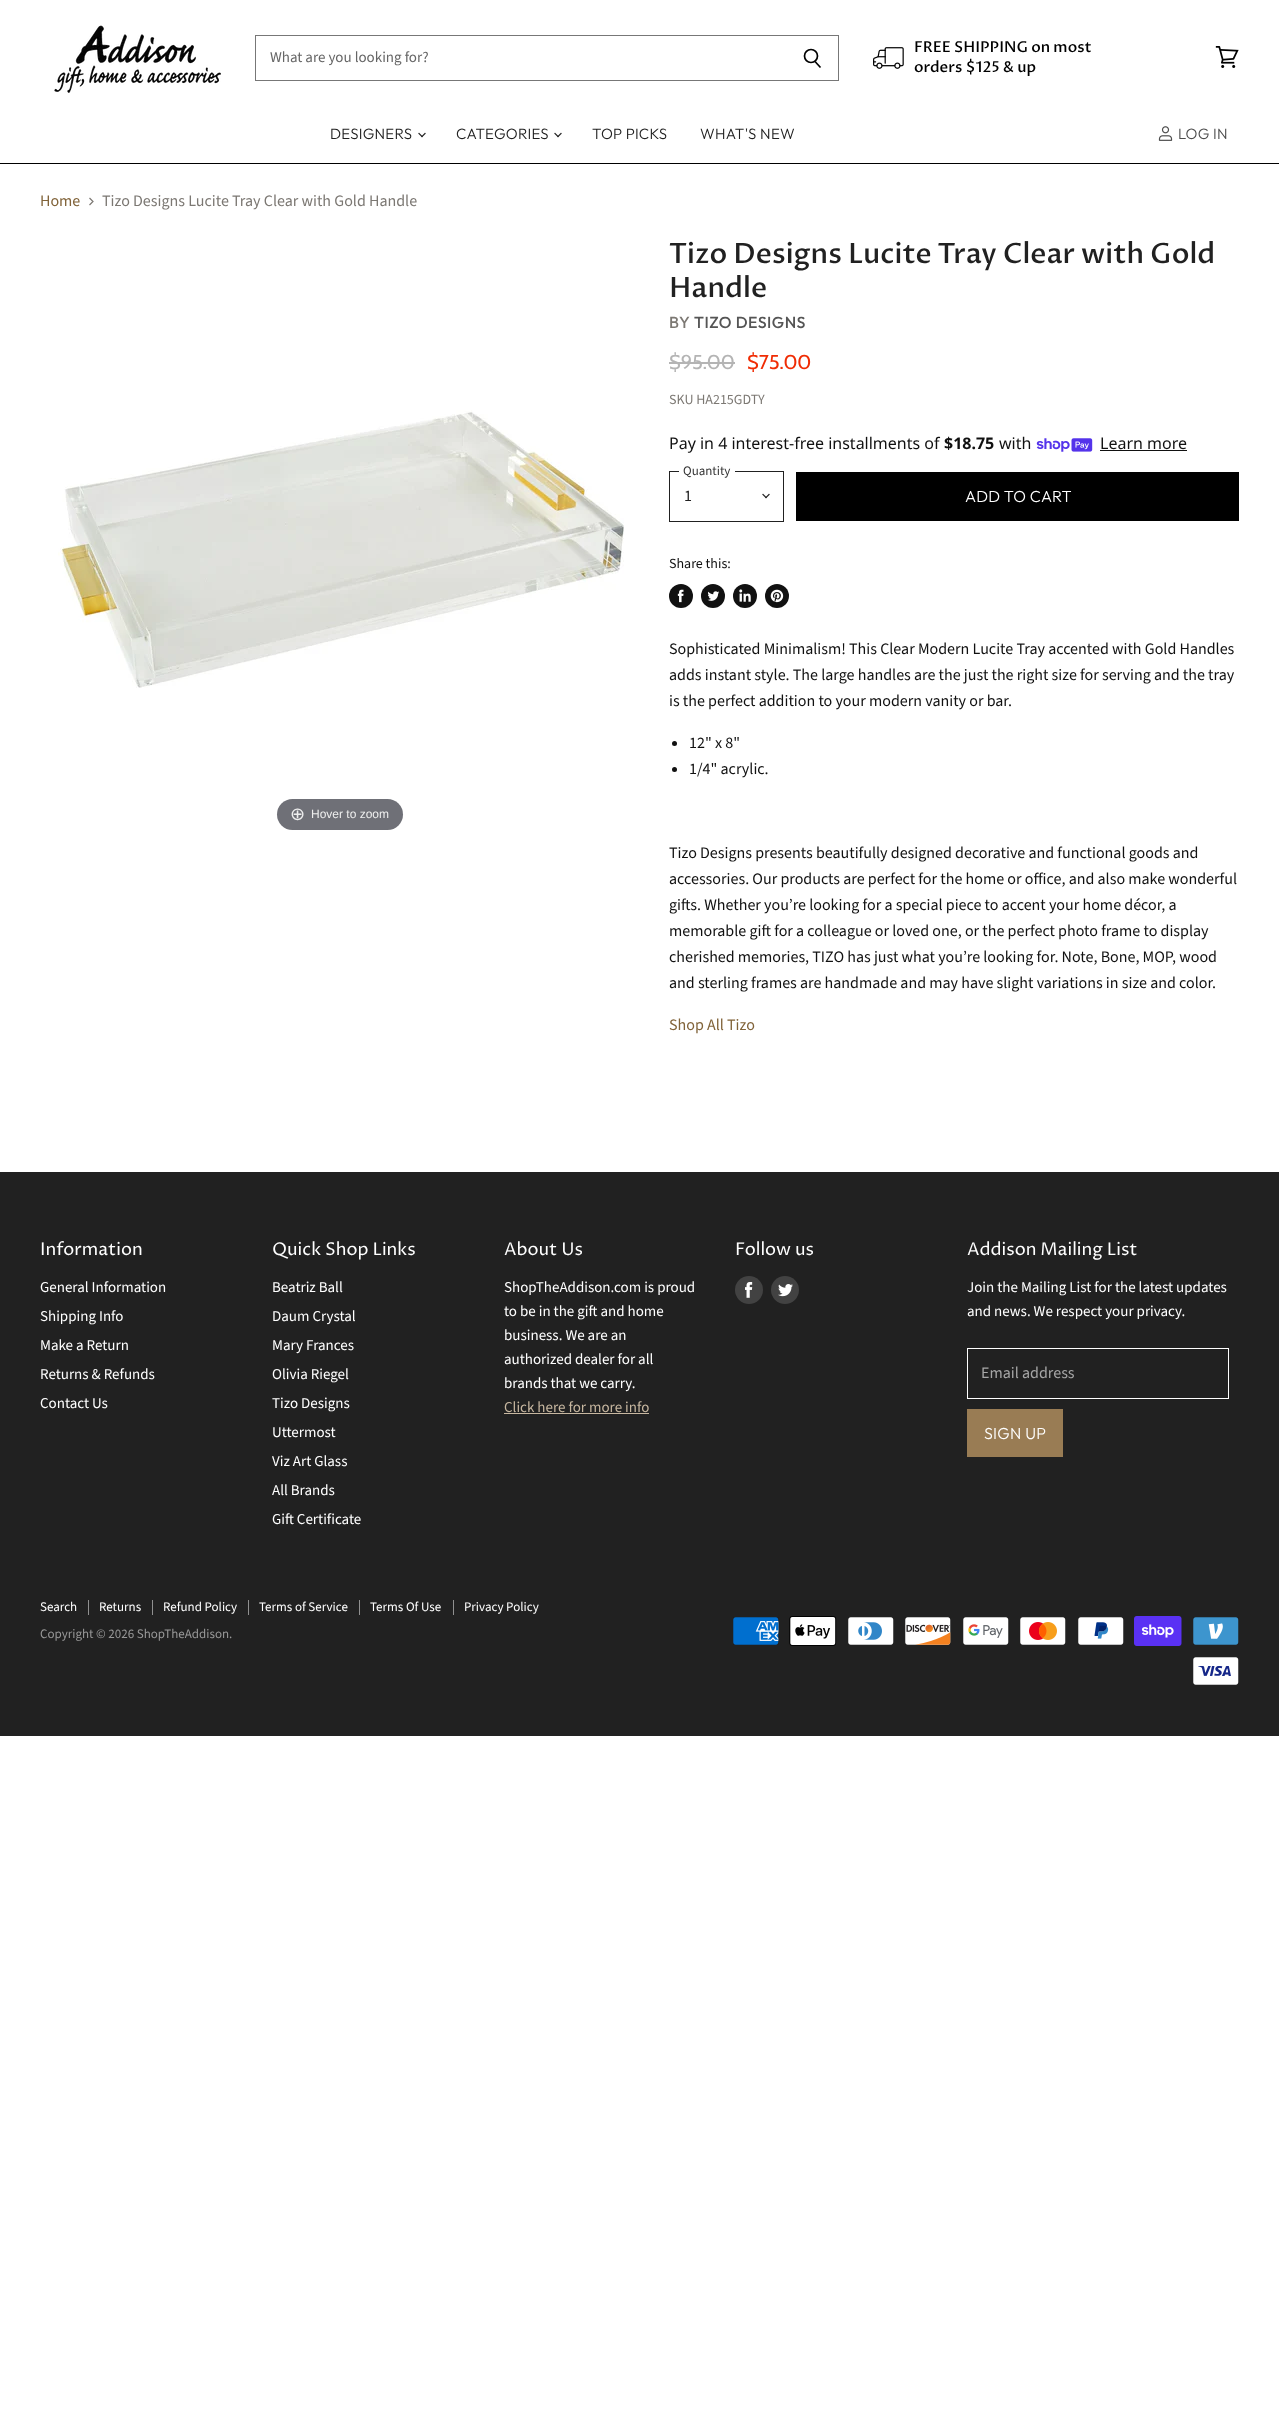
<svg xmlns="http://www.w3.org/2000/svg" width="1279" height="2424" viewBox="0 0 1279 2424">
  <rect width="100%" height="100%" fill="rgb(255,255,255)"/>
  <rect x="0" y="163" width="1279" height="1" fill="rgb(0,0,0)"/>
  <image x="54" y="25" width="167" height="68" href="pic1.png"/>
  <rect x="255" y="35" width="584" height="1" fill="rgb(119,119,119)"/>
  <rect x="838" y="35" width="1" height="46" fill="rgb(119,119,119)"/>
  <rect x="255" y="80" width="584" height="1" fill="rgb(119,119,119)"/>
  <path d="M820.5 67.5L815 61.5" fill="none" stroke="rgb(0,0,0)" stroke-width="1.7"/>
  <circle cx="811" cy="56" r="6.5" fill="none" stroke="rgb(0,0,0)" stroke-width="1.7"/>
  <rect x="255" y="35" width="1" height="46" fill="rgb(119,119,119)"/>
  <text x="270" y="62" font-family="Source Sans Pro" font-size="15" fill="rgb(102,102,102)">What are you looking for?</text>
  <image x="873" y="47" width="31" height="22" href="pic2.png"/>
  <g font-family="Proza Libre" font-size="15" font-weight="500" fill="rgb(0,0,0)">
    <text>
      <tspan x="914" y="52">FREE SHIPPING on most</tspan>
      <tspan x="914" y="72">orders $125 &amp; up</tspan>
    </text>
  </g>
  <image x="1215" y="46" width="24" height="22" href="pic3.png"/>
  <text x="330" y="139" font-family="Outfit" font-size="15" font-weight="300" letter-spacing="0.25" fill="rgb(33,33,33)">DESIGNERS</text>
  <image x="418" y="132" width="8" height="6" href="pic4.png"/>
  <text x="456" y="139" font-family="Outfit" font-size="15" font-weight="300" letter-spacing="0.25" fill="rgb(33,33,33)">CATEGORIES</text>
  <image x="554" y="132" width="8" height="6" href="pic4.png"/>
  <g font-family="Outfit" font-size="15" font-weight="300" letter-spacing="0.25" fill="rgb(33,33,33)">
    <text x="592" y="139">TOP PICKS</text>
    <text x="700" y="139">WHAT'S NEW</text>
  </g>
  <image x="1158" y="126" width="15" height="15" href="pic5.png"/>
  <text x="1178" y="139" font-family="Outfit" font-size="15" font-weight="300" letter-spacing="0.25" fill="rgb(77,77,77)">LOG IN</text>
  <text x="40" y="206" font-family="Source Sans Pro" font-size="16" fill="rgb(129,99,57)">Home</text>
  <path d="M89.5 205L93 201.5L89.5 198" fill="none" stroke="rgb(124,120,115)" stroke-width="1.2"/>
  <text x="102" y="206" font-family="Source Sans Pro" font-size="16" fill="rgb(124,120,115)">Tizo Designs Lucite Tray Clear with Gold Handle</text>
  <image x="58" y="410" width="566" height="278" href="pic6.png"/>
  <rect x="277" y="799" width="126" height="31" rx="15.5" fill="rgb(111,112,119)"/>
  <text x="290" y="820" font-family="DejaVu Sans" font-size="18" fill="rgb(238,238,238)">⊕</text>
  <text x="311" y="818" font-family="Liberation Sans" font-size="12" fill="rgb(238,238,238)">Hover to zoom</text>
  <g font-family="Proza Libre" font-size="28" font-weight="500" fill="rgb(33,33,33)">
    <text>
      <tspan x="669" y="263">Tizo Designs Lucite Tray Clear with Gold</tspan>
      <tspan x="669" y="297">Handle</tspan>
    </text>
  </g>
  <text x="669" y="328" font-family="Outfit" font-size="16" font-weight="500" letter-spacing="0.5" fill="rgb(124,120,115)">BY</text>
  <text x="694" y="328" font-family="Outfit" font-size="16" font-weight="500" letter-spacing="0.5" fill="rgb(85,85,85)">TIZO DESIGNS</text>
  <text x="669" y="369" font-family="Cabin" font-size="20" fill="rgb(180,180,180)">$95.00</text>
  <rect x="669" y="362" width="66" height="2" fill="rgb(180,180,180)"/>
  <text x="747" y="369" font-family="Cabin" font-size="20" fill="rgb(240,44,4)">$75.00</text>
  <text x="669" y="404" font-family="Source Sans Pro" font-size="14" fill="rgb(124,120,115)">SKU HA215GDTY</text>
  <text x="669" y="449" font-family="Noto Sans" font-size="16" fill="rgb(17,17,17)">Pay in 4 interest-free installments of</text>
  <text x="944" y="449" font-family="Noto Sans" font-size="16" font-weight="bold" fill="rgb(17,17,17)">$18.75</text>
  <text x="999" y="449" font-family="Noto Sans" font-size="16" fill="rgb(17,17,17)">with</text>
  <image x="1036" y="438" width="57" height="14" href="pic7.png"/>
  <text x="1100" y="449" font-family="Noto Sans" font-size="16" fill="rgb(17,17,17)">Learn more</text>
  <rect x="1100" y="450" width="87" height="1" fill="rgb(17,17,17)"/>
  <rect x="669.5" y="471.5" width="114" height="50" fill="none" stroke="rgb(33,33,33)"/>
  <rect x="679" y="471" width="56" height="1" fill="rgb(255,255,255)"/>
  <text x="683" y="475" font-family="Source Sans Pro" font-size="13" fill="rgb(51,51,51)">Quantity</text>
  <text x="684" y="501" font-family="Source Sans Pro" font-size="16" fill="rgb(33,33,33)">1</text>
  <image x="762" y="493" width="8" height="6" href="pic4.png"/>
  <rect x="796" y="472" width="443" height="49" fill="rgb(0,0,0)"/>
  <text x="965" y="502" font-family="Outfit" font-size="16" font-weight="300" letter-spacing="0.25" fill="rgb(255,255,255)">ADD TO CART</text>
  <text x="669" y="568" font-family="Source Sans Pro" font-size="14" fill="rgb(17,17,17)">Share this:</text>
  <circle cx="681" cy="596" r="12" fill="rgb(17,17,17)"/>
  <image x="677" y="589" width="7" height="14" href="pic8.png"/>
  <circle cx="713" cy="596" r="12" fill="rgb(17,17,17)"/>
  <image x="707" y="591" width="13" height="10" href="pic9.png"/>
  <circle cx="745" cy="596" r="12" fill="rgb(17,17,17)"/>
  <image x="739" y="589" width="12" height="13" href="pic10.png"/>
  <circle cx="777" cy="596" r="12" fill="rgb(17,17,17)"/>
  <image x="770" y="589" width="14" height="14" href="pic11.png"/>
  <g font-family="Source Sans Pro" font-size="16" fill="rgb(17,17,17)">
    <text>
      <tspan x="669" y="654">Sophisticated Minimalism! This Clear Modern Lucite Tray accented with Gold Handles</tspan>
      <tspan x="669" y="680">adds instant style. The large handles are the just the right size for serving and the tray</tspan>
      <tspan x="669" y="706">is the perfect addition to your modern vanity or bar.</tspan>
    </text>
  </g>
  <circle cx="674.5" cy="743.5" r="2.5" fill="rgb(17,17,17)"/>
  <text x="689" y="748" font-family="Source Sans Pro" font-size="16" fill="rgb(17,17,17)">12" x 8"</text>
  <circle cx="674.5" cy="769.5" r="2.5" fill="rgb(17,17,17)"/>
  <g font-family="Source Sans Pro" font-size="16" fill="rgb(17,17,17)">
    <text x="689" y="774">1/4" acrylic.</text>
    <text>
      <tspan x="669" y="858">Tizo Designs presents beautifully designed decorative and functional goods and</tspan>
      <tspan x="669" y="884">accessories. Our products are perfect for the home or office, and also make wonderful</tspan>
      <tspan x="669" y="910">gifts. Whether you’re looking for a special piece to accent your home décor, a</tspan>
      <tspan x="669" y="936">memorable gift for a colleague or loved one, or the perfect photo frame to display</tspan>
      <tspan x="669" y="962">cherished memories, TIZO has just what you’re looking for. Note, Bone, MOP, wood</tspan>
      <tspan x="669" y="988">and sterling frames are handmade and may have slight variations in size and color.</tspan>
    </text>
  </g>
  <text x="669" y="1030" font-family="Source Sans Pro" font-size="16" fill="rgb(129,99,57)">Shop All Tizo</text>
  <rect x="0" y="1172" width="1279" height="564" fill="rgb(33,33,33)"/>
  <text x="40" y="1255" font-family="Proza Libre" font-size="17.6" fill="rgb(255,255,255)">Information</text>
  <g font-family="Source Sans Pro" font-size="15" fill="rgb(255,255,255)">
    <text>
      <tspan x="40" y="1292">General Information</tspan>
      <tspan x="40" y="1321">Shipping Info</tspan>
      <tspan x="40" y="1350">Make a Return</tspan>
      <tspan x="40" y="1379">Returns &amp; Refunds</tspan>
      <tspan x="40" y="1408">Contact Us</tspan>
    </text>
  </g>
  <text x="272" y="1255" font-family="Proza Libre" font-size="17.6" fill="rgb(255,255,255)">Quick Shop Links</text>
  <g font-family="Source Sans Pro" font-size="15" fill="rgb(255,255,255)">
    <text>
      <tspan x="272" y="1292">Beatriz Ball</tspan>
      <tspan x="272" y="1321">Daum Crystal</tspan>
      <tspan x="272" y="1350">Mary Frances</tspan>
      <tspan x="272" y="1379">Olivia Riegel</tspan>
      <tspan x="272" y="1408">Tizo Designs</tspan>
      <tspan x="272" y="1437">Uttermost</tspan>
      <tspan x="272" y="1466">Viz Art Glass</tspan>
      <tspan x="272" y="1495">All Brands</tspan>
      <tspan x="272" y="1524">Gift Certificate</tspan>
    </text>
  </g>
  <text x="504" y="1255" font-family="Proza Libre" font-size="17.6" fill="rgb(255,255,255)">About Us</text>
  <g font-family="Source Sans Pro" font-size="15" fill="rgb(255,255,255)">
    <text>
      <tspan x="504" y="1292">ShopTheAddison.com is proud</tspan>
      <tspan x="504" y="1316">to be in the gift and home</tspan>
      <tspan x="504" y="1340">business. We are an</tspan>
      <tspan x="504" y="1364">authorized dealer for all</tspan>
      <tspan x="504" y="1388">brands that we carry.</tspan>
    </text>
  </g>
  <text x="504" y="1412" font-family="Source Sans Pro" font-size="15" fill="rgb(199,183,160)">Click here for more info</text>
  <rect x="504" y="1413" width="145" height="1" fill="rgb(199,183,160)"/>
  <text x="735" y="1255" font-family="Proza Libre" font-size="17.6" fill="rgb(255,255,255)">Follow us</text>
  <circle cx="749" cy="1290" r="14" fill="rgb(66,66,66)"/>
  <image x="745" y="1282" width="8" height="16" href="pic12.png"/>
  <circle cx="785" cy="1290" r="14" fill="rgb(66,66,66)"/>
  <image x="778" y="1284" width="15" height="13" href="pic13.png"/>
  <text x="967" y="1255" font-family="Proza Libre" font-size="17.6" fill="rgb(255,255,255)">Addison Mailing List</text>
  <g font-family="Source Sans Pro" font-size="15" fill="rgb(255,255,255)">
    <text>
      <tspan x="967" y="1292">Join the Mailing List for the latest updates</tspan>
      <tspan x="967" y="1316">and news. We respect your privacy.</tspan>
    </text>
  </g>
  <rect x="967.5" y="1348.5" width="261" height="50" fill="none" stroke="rgb(255,255,255)"/>
  <text x="981" y="1378" font-family="Source Sans Pro" font-size="16" fill="rgb(166,166,166)">Email address</text>
  <rect x="967" y="1409" width="96" height="48" fill="rgb(153,124,84)"/>
  <text x="984" y="1439" font-family="Outfit" font-size="16" font-weight="300" letter-spacing="0.25" fill="rgb(255,255,255)">SIGN UP</text>
  <rect x="88" y="1600" width="1" height="15" fill="rgb(144,144,144)"/>
  <text x="40" y="1611" font-family="Source Sans Pro" font-size="13" fill="rgb(255,255,255)">Search</text>
  <rect x="152" y="1600" width="1" height="15" fill="rgb(144,144,144)"/>
  <text x="99" y="1611" font-family="Source Sans Pro" font-size="13" fill="rgb(255,255,255)">Returns</text>
  <rect x="248" y="1600" width="1" height="15" fill="rgb(144,144,144)"/>
  <text x="163" y="1611" font-family="Source Sans Pro" font-size="13" fill="rgb(255,255,255)">Refund Policy</text>
  <rect x="359" y="1600" width="1" height="15" fill="rgb(144,144,144)"/>
  <text x="259" y="1611" font-family="Source Sans Pro" font-size="13" fill="rgb(255,255,255)">Terms of Service</text>
  <rect x="453" y="1600" width="1" height="15" fill="rgb(144,144,144)"/>
  <g font-family="Source Sans Pro" font-size="13" fill="rgb(255,255,255)">
    <text x="370" y="1611">Terms Of Use</text>
    <text x="464" y="1611">Privacy Policy</text>
  </g>
  <text x="40" y="1638" font-family="Source Sans Pro" font-size="13" fill="rgb(153,153,153)">Copyright © 2026 ShopTheAddison.</text>
  <image x="733" y="1617" width="46" height="28" href="pic14.png"/>
  <image x="789" y="1616" width="48" height="30" href="pic15.png"/>
  <image x="848" y="1617" width="46" height="28" href="pic16.png"/>
  <image x="905" y="1617" width="46" height="28" href="pic17.png"/>
  <image x="963" y="1617" width="46" height="28" href="pic18.png"/>
  <image x="1020" y="1617" width="46" height="28" href="pic19.png"/>
  <image x="1078" y="1617" width="46" height="28" href="pic20.png"/>
  <image x="1134" y="1616" width="48" height="30" href="pic21.png"/>
  <image x="1193" y="1617" width="46" height="28" href="pic22.png"/>
  <image x="1193" y="1657" width="46" height="28" href="pic23.png"/>
</svg>
